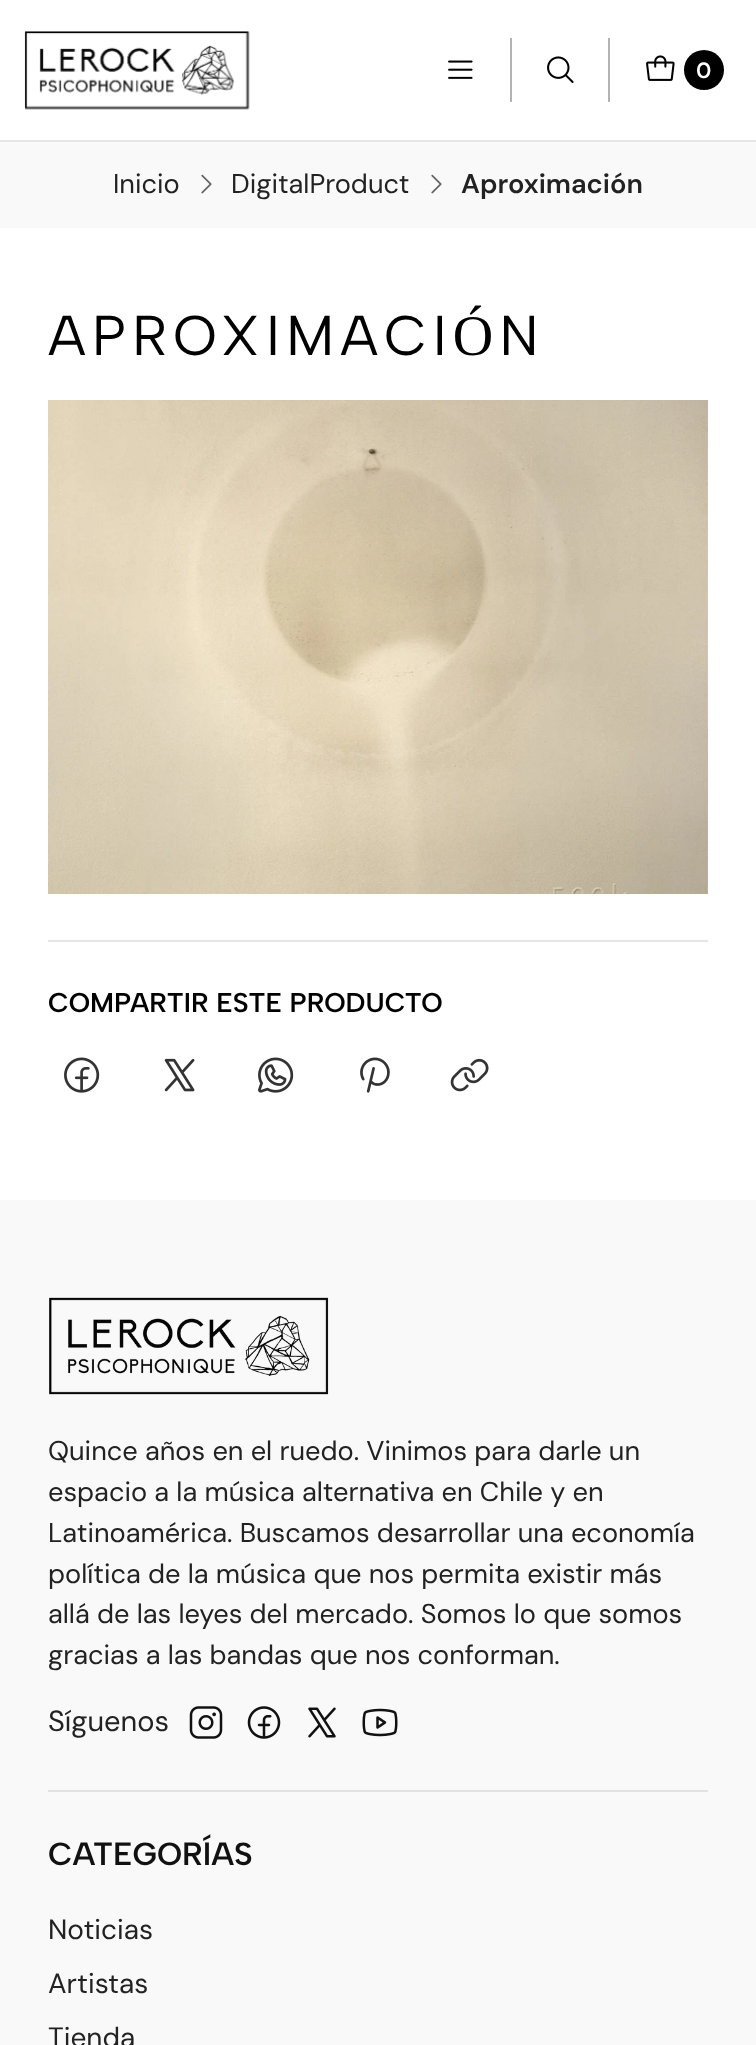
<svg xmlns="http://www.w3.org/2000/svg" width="756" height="2045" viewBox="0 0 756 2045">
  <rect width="100%" height="100%" fill="rgb(255,255,255)"/>
  <rect x="0" y="140" width="756" height="2" fill="rgb(230,230,230)"/>
  <image x="24" y="31" width="226" height="79" href="pic1.png"/>
  <image x="448" y="60" width="25" height="19" href="pic2.png"/>
  <rect x="510" y="38" width="2" height="64" fill="rgb(179,179,179)"/>
  <image x="547" y="56" width="27" height="27" href="pic3.png"/>
  <rect x="608" y="38" width="2" height="64" fill="rgb(179,179,179)"/>
  <image x="646" y="55" width="29" height="26" href="pic4.png"/>
  <circle cx="704" cy="70" r="20" fill="rgb(0,0,0)"/>
  <text x="696" y="78" font-family="DM Sans" font-size="22" font-weight="600" fill="rgb(255,255,255)">0</text>
  <rect x="0" y="142" width="756" height="86" fill="rgb(249,249,249)"/>
  <text x="113" y="193" font-family="DM Sans" font-size="27.2" fill="rgb(34,34,34)">Inicio</text>
  <image x="201" y="174" width="11" height="20" href="pic5.png"/>
  <text x="231" y="193" font-family="DM Sans" font-size="27.2" fill="rgb(34,34,34)">DigitalProduct</text>
  <image x="431" y="174" width="11" height="20" href="pic5.png"/>
  <text x="461" y="193" font-family="DM Sans" font-size="27.2" font-weight="600" fill="rgb(34,34,34)">Aproximación</text>
  <text x="48" y="355" font-family="Albert Sans" font-size="56" letter-spacing="6" fill="rgb(0,0,0)">APROXIMACIÓN</text>
  <image x="48" y="400" width="660" height="494" href="pic6.png"/>
  <rect x="48" y="940" width="660" height="2" fill="rgb(230,230,230)"/>
  <text x="48" y="1012" font-family="Albert Sans" font-size="27.2" font-weight="600" fill="rgb(0,0,0)">COMPARTIR ESTE PRODUCTO</text>
  <image x="64" y="1057" width="36" height="36" href="pic7.png"/>
  <image x="164" y="1058" width="31" height="34" href="pic8.png"/>
  <image x="258" y="1057" width="36" height="36" href="pic9.png"/>
  <image x="360" y="1057" width="30" height="36" href="pic10.png"/>
  <image x="450" y="1058" width="39" height="34" href="pic11.png"/>
  <rect x="0" y="1200" width="756" height="845" fill="rgb(249,249,249)"/>
  <image x="49" y="1297" width="280" height="98" href="pic12.png"/>
  <g font-family="DM Sans" font-size="27.2" fill="rgb(34,34,34)">
    <text>
      <tspan x="48" y="1460">Quince años en el ruedo. Vinimos para darle un</tspan>
      <tspan x="48" y="1501">espacio a la música alternativa en Chile y en</tspan>
      <tspan x="48" y="1542">Latinoamérica. Buscamos desarrollar una economía</tspan>
      <tspan x="48" y="1583">política de la música que nos permita existir más</tspan>
      <tspan x="48" y="1623">allá de las leyes del mercado. Somos lo que somos</tspan>
      <tspan x="48" y="1664">gracias a las bandas que nos conforman.</tspan>
    </text>
  </g>
  <text x="48" y="1731" font-family="DM Sans" font-size="29" fill="rgb(34,34,34)">Síguenos</text>
  <image x="189" y="1706" width="34" height="33" href="pic13.png"/>
  <image x="247" y="1706" width="34" height="33" href="pic14.png"/>
  <image x="308" y="1707" width="28" height="31" href="pic15.png"/>
  <image x="362" y="1708" width="36" height="29" href="pic16.png"/>
  <rect x="48" y="1790" width="660" height="2" fill="rgb(226,226,226)"/>
  <text x="48" y="1865" font-family="Albert Sans" font-size="32" font-weight="600" fill="rgb(17,17,17)">CATEGORÍAS</text>
  <g font-family="DM Sans" font-size="28" fill="rgb(34,34,34)">
    <text>
      <tspan x="48" y="1939">Noticias</tspan>
      <tspan x="48" y="1993">Artistas</tspan>
      <tspan x="48" y="2047">Tienda</tspan>
    </text>
  </g>
</svg>
